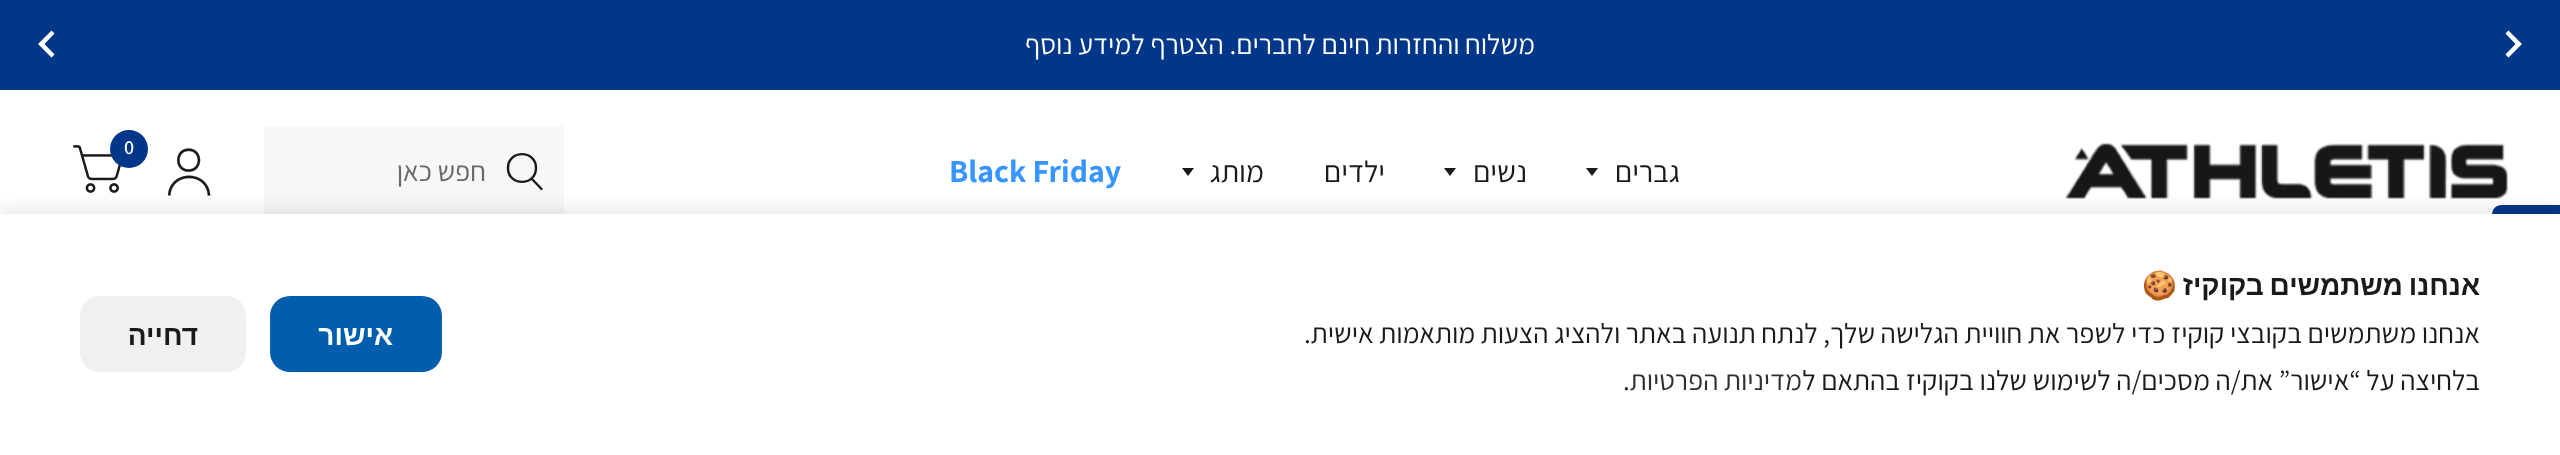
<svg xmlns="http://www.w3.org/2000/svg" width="2560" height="455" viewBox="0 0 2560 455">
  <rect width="100%" height="100%" fill="rgb(255,255,255)"/>
  <path d="M2492 409V215C2492 209 2496 205 2502 205H2560V419H2502C2496 419 2492 414 2492 409Z" fill="rgb(0,55,136)"/>
  <rect x="0" y="0" width="2560" height="90" fill="rgb(0,55,137)"/>
  <path d="M2505.5 54.5L2515.5 44L2505.5 33.5L2508.5 30.5L2522 44L2508.5 57.5Z" fill="rgb(255,255,255)"/>
  <text x="1535" y="54" font-family="Assistant" font-size="28" direction="rtl" fill="rgb(255,255,255)">משלוח והחזרות חינם לחברים. הצטרף למידע נוסף</text>
  <path d="M54.5 33.5L44.5 44L54.5 54.5L51.5 57.5L38 44L51.5 30.5Z" fill="rgb(255,255,255)"/>
  <image x="2065" y="143" width="443" height="56" href="pic1.png"/>
  <text x="1680" y="182" font-family="Assistant" font-size="30" direction="rtl" fill="rgb(26,26,26)">גברים</text>
  <path d="M1586 168H1598L1592 176Z" fill="rgb(26,26,26)"/>
  <text x="1527" y="182" font-family="Assistant" font-size="30" direction="rtl" fill="rgb(26,26,26)">נשים</text>
  <path d="M1444 168H1456L1450 176Z" fill="rgb(26,26,26)"/>
  <g font-family="Assistant" font-size="30" direction="rtl" fill="rgb(26,26,26)">
    <text x="1385" y="182">ילדים</text>
    <text x="1264" y="182">מותג</text>
  </g>
  <path d="M1182 168H1194L1188 176Z" fill="rgb(26,26,26)"/>
  <text x="949" y="182" font-family="Assistant" font-size="32" font-weight="bold" fill="rgb(54,149,255)">Black Friday</text>
  <rect x="264" y="126" width="300" height="88" fill="rgb(247,247,247)"/>
  <path d="M532 179L541.5 189M536 168C536 186.5 508 186.5 508 168C508 149.5 536 149.5 536 168Z" fill="none" stroke="rgb(26,26,26)" stroke-width="2.4" stroke-linecap="round" stroke-linejoin="round"/>
  <text x="486" y="181" font-family="Assistant" font-size="28" direction="rtl" fill="rgb(105,105,105)">חפש כאן</text>
  <image x="167" y="148" width="44" height="48" href="pic2.png"/>
  <image x="73" y="145" width="48" height="48" href="pic3.png"/>
  <circle cx="129" cy="149" r="19" fill="rgb(1,55,137)"/>
  <text x="124" y="154" font-family="Assistant" font-size="20" font-weight="600" fill="rgb(255,255,255)">0</text>
  <rect x="0" y="210" width="2560" height="242" fill="rgba(0,0,0,0.1)" filter="blur(10px)"/>
  <rect x="0" y="214" width="2560" height="241" fill="rgb(255,255,255)"/>
  <text x="2480" y="295" word-spacing="-2" font-family="Liberation Sans" font-size="28" font-weight="bold" direction="rtl" fill="rgb(26,26,26)">אנחנו משתמשים בקוקיז</text>
  <text x="2177" y="295" font-family="Noto Color Emoji" font-size="28" font-weight="bold" direction="rtl" fill="rgb(26,26,26)">🍪</text>
  <g font-family="Assistant" font-size="28" direction="rtl" fill="rgb(26,26,26)">
    <text>
      <tspan x="2480" y="343">אנחנו משתמשים בקובצי קוקיז כדי לשפר את חוויית הגלישה שלך, לנתח תנועה באתר ולהציג הצעות מותאמות אישית.</tspan>
      <tspan x="2480" y="390">בלחיצה על “אישור” את/ה מסכים/ה לשימוש שלנו בקוקיז בהתאם ל</tspan>
    </text>
  </g>
  <text x="1802" y="390" font-family="Assistant" font-size="28" direction="rtl" fill="rgb(47,47,47)">מדיניות הפרטיות</text>
  <text x="1623" y="390" font-family="Assistant" font-size="28" fill="rgb(26,26,26)">.</text>
  <rect x="270" y="296" width="172" height="76" rx="20" fill="rgb(0,94,172)"/>
  <text x="393" y="345" font-family="Liberation Sans" font-size="28" font-weight="bold" direction="rtl" fill="rgb(255,255,255)">אישור</text>
  <rect x="80" y="296" width="166" height="76" rx="20" fill="rgb(240,240,240)"/>
  <text x="198" y="345" font-family="Liberation Sans" font-size="28" font-weight="bold" direction="rtl" fill="rgb(26,26,26)">דחייה</text>
</svg>
